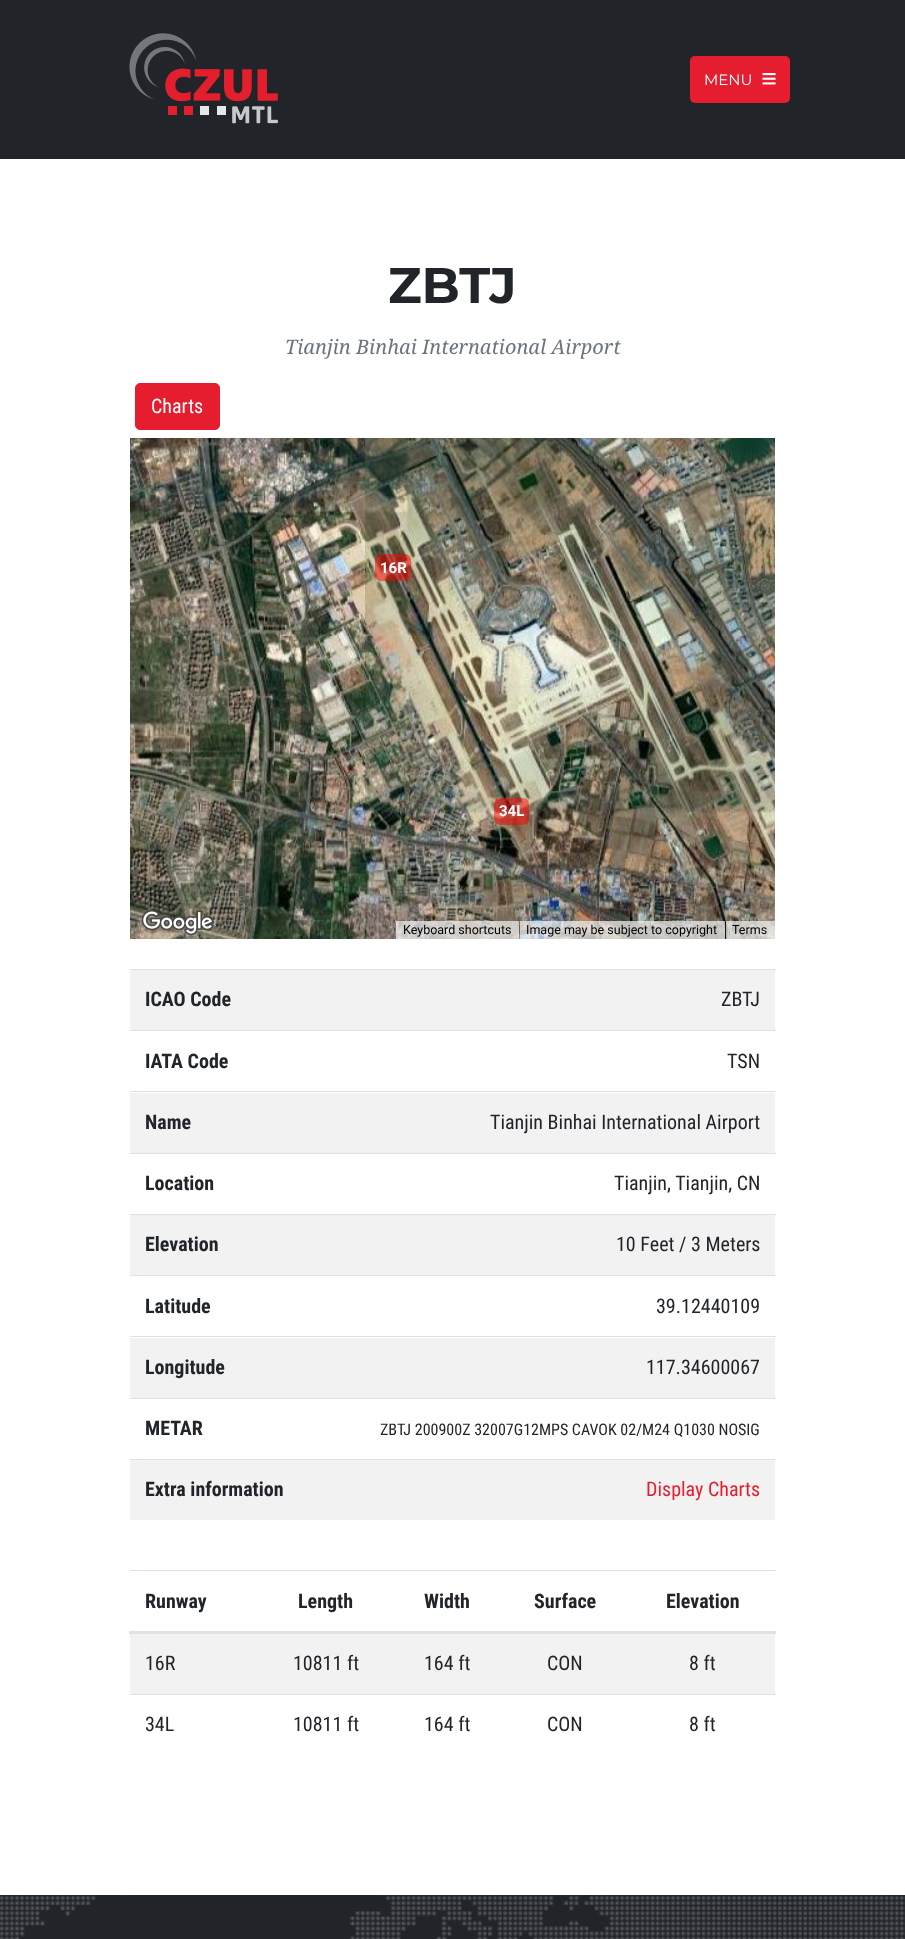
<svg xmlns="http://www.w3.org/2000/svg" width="905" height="1939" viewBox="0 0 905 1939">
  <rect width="100%" height="100%" fill="rgb(255,255,255)"/>
  <rect x="0" y="0" width="905" height="159" fill="rgb(33,37,41)"/>
  <image x="129" y="33" width="149" height="91" href="pic1.png"/>
  <rect x="690" y="56" width="100" height="47" rx="5" fill="rgb(229,29,46)"/>
  <text x="704" y="85" font-family="Montserrat" font-size="15" fill="rgb(255,255,255)">MENU</text>
  <image x="762" y="73" width="14" height="12" href="pic2.png"/>
  <text x="388" y="303" font-family="Montserrat" font-size="50" font-weight="bold" fill="rgb(33,37,41)">ZBTJ</text>
  <text x="285" y="354" font-family="Droid Serif" font-size="20" font-style="italic" fill="rgb(108,117,125)">Tianjin Binhai International Airport</text>
  <rect x="135.5" y="383.5" width="84" height="46" rx="4.5" fill="rgb(229,29,46)" stroke="rgb(229,29,46)"/>
  <text x="151" y="413" font-family="Roboto Condensed" font-size="20" fill="rgb(255,255,255)">Charts</text>
  <image x="130" y="438" width="235" height="198" href="pic3.png"/>
  <image x="365" y="438" width="320" height="198" href="pic4.png"/>
  <image x="685" y="438" width="90" height="198" href="pic5.png"/>
  <image x="130" y="636" width="235" height="303" href="pic6.png"/>
  <image x="365" y="636" width="320" height="303" href="pic7.png"/>
  <image x="685" y="636" width="90" height="303" href="pic8.png"/>
  <rect x="375" y="554" width="36" height="27" rx="6" fill="rgba(255,0,0,0.5)"/>
  <text x="380" y="573" font-family="Roboto" font-size="15" font-weight="bold" fill="rgb(255,255,255)">16R</text>
  <rect x="494" y="798" width="35" height="27" rx="6" fill="rgba(255,0,0,0.5)"/>
  <text x="499" y="816" font-family="Roboto" font-size="15" font-weight="bold" fill="rgb(255,255,255)">34L</text>
  <image x="141" y="910" width="74" height="26" href="pic9.png"/>
  <rect x="396" y="921" width="123" height="18" fill="rgba(245,245,245,0.7)"/>
  <text x="403" y="934" font-family="Roboto" font-size="12.5" fill="rgb(0,0,0)">Keyboard shortcuts</text>
  <rect x="520" y="921" width="205" height="18" fill="rgba(245,245,245,0.7)"/>
  <text x="526" y="934" font-family="Roboto" font-size="12.5" fill="rgb(0,0,0)">Image may be subject to copyright</text>
  <rect x="726" y="921" width="49" height="18" fill="rgba(245,245,245,0.7)"/>
  <text x="732" y="934" font-family="Roboto" font-size="12.5" fill="rgb(0,0,0)">Terms</text>
  <rect x="130" y="970" width="645" height="60" fill="rgb(242,242,242)"/>
  <text x="145" y="1006" font-family="Roboto Condensed" font-size="20" font-weight="bold" fill="rgb(33,37,41)">ICAO Code</text>
  <rect x="130" y="969" width="646" height="1" fill="rgb(222,226,230)"/>
  <text x="721" y="1006" font-family="Roboto Condensed" font-size="20" fill="rgb(33,37,41)">ZBTJ</text>
  <text x="145" y="1068" font-family="Roboto Condensed" font-size="20" font-weight="bold" fill="rgb(33,37,41)">IATA Code</text>
  <rect x="130" y="1030" width="646" height="1" fill="rgb(222,226,230)"/>
  <text x="727" y="1068" font-family="Roboto Condensed" font-size="20" fill="rgb(33,37,41)">TSN</text>
  <rect x="130" y="1093" width="645" height="60" fill="rgb(242,242,242)"/>
  <text x="145" y="1129" font-family="Roboto Condensed" font-size="20" font-weight="bold" fill="rgb(33,37,41)">Name</text>
  <rect x="130" y="1091" width="646" height="1" fill="rgb(222,226,230)"/>
  <text x="490" y="1129" font-family="Roboto Condensed" font-size="20" fill="rgb(33,37,41)">Tianjin Binhai International Airport</text>
  <text x="145" y="1190" font-family="Roboto Condensed" font-size="20" font-weight="bold" fill="rgb(33,37,41)">Location</text>
  <rect x="130" y="1153" width="646" height="1" fill="rgb(222,226,230)"/>
  <text x="614" y="1190" font-family="Roboto Condensed" font-size="20" fill="rgb(33,37,41)">Tianjin, Tianjin, CN</text>
  <rect x="130" y="1215" width="645" height="60" fill="rgb(242,242,242)"/>
  <text x="145" y="1251" font-family="Roboto Condensed" font-size="20" font-weight="bold" fill="rgb(33,37,41)">Elevation</text>
  <rect x="130" y="1214" width="646" height="1" fill="rgb(222,226,230)"/>
  <text x="616" y="1251" font-family="Roboto Condensed" font-size="20" fill="rgb(33,37,41)">10 Feet / 3 Meters</text>
  <text x="145" y="1313" font-family="Roboto Condensed" font-size="20" font-weight="bold" fill="rgb(33,37,41)">Latitude</text>
  <rect x="130" y="1275" width="646" height="1" fill="rgb(222,226,230)"/>
  <text x="656" y="1313" font-family="Roboto Condensed" font-size="20" fill="rgb(33,37,41)">39.12440109</text>
  <rect x="130" y="1338" width="645" height="60" fill="rgb(242,242,242)"/>
  <text x="145" y="1374" font-family="Roboto Condensed" font-size="20" font-weight="bold" fill="rgb(33,37,41)">Longitude</text>
  <rect x="130" y="1336" width="646" height="1" fill="rgb(222,226,230)"/>
  <text x="646" y="1374" font-family="Roboto Condensed" font-size="20" fill="rgb(33,37,41)">117.34600067</text>
  <text x="145" y="1435" font-family="Roboto Condensed" font-size="20" font-weight="bold" fill="rgb(33,37,41)">METAR</text>
  <rect x="130" y="1398" width="646" height="1" fill="rgb(222,226,230)"/>
  <text x="380" y="1435" font-family="Roboto Condensed" font-size="16" fill="rgb(33,37,41)">ZBTJ 200900Z 32007G12MPS CAVOK 02/M24 Q1030 NOSIG</text>
  <rect x="130" y="1460" width="645" height="60" fill="rgb(242,242,242)"/>
  <text x="145" y="1496" font-family="Roboto Condensed" font-size="20" font-weight="bold" fill="rgb(33,37,41)">Extra information</text>
  <rect x="130" y="1459" width="646" height="1" fill="rgb(222,226,230)"/>
  <text x="646" y="1496" font-family="Roboto Condensed" font-size="20" fill="rgb(229,29,46)">Display Charts</text>
  <g font-family="Roboto Condensed" font-size="20" font-weight="bold" fill="rgb(33,37,41)">
    <text x="145" y="1608">Runway</text>
    <text x="298" y="1608">Length</text>
    <text x="424" y="1608">Width</text>
    <text x="534" y="1608">Surface</text>
  </g>
  <rect x="130" y="1570" width="646" height="1" fill="rgb(222,226,230)"/>
  <rect x="129" y="1631" width="647" height="3" fill="rgb(222,226,230)"/>
  <text x="666" y="1608" font-family="Roboto Condensed" font-size="20" font-weight="bold" fill="rgb(33,37,41)">Elevation</text>
  <rect x="130" y="1634" width="645" height="60" fill="rgb(242,242,242)"/>
  <g font-family="Roboto Condensed" font-size="20" fill="rgb(33,37,41)">
    <text x="145" y="1670">16R</text>
    <text x="293" y="1670">10811 ft</text>
    <text x="424" y="1670">164 ft</text>
    <text x="547" y="1670">CON</text>
    <text x="689" y="1670">8 ft</text>
    <text x="145" y="1731">34L</text>
    <text x="293" y="1731">10811 ft</text>
    <text x="424" y="1731">164 ft</text>
    <text x="547" y="1731">CON</text>
  </g>
  <rect x="130" y="1694" width="646" height="1" fill="rgb(222,226,230)"/>
  <text x="689" y="1731" font-family="Roboto Condensed" font-size="20" fill="rgb(33,37,41)">8 ft</text>
  <rect x="0" y="1895" width="905" height="44" fill="rgb(33,37,41)"/>
  <image x="0" y="1895" width="905" height="44" href="pic10.png"/>
</svg>
